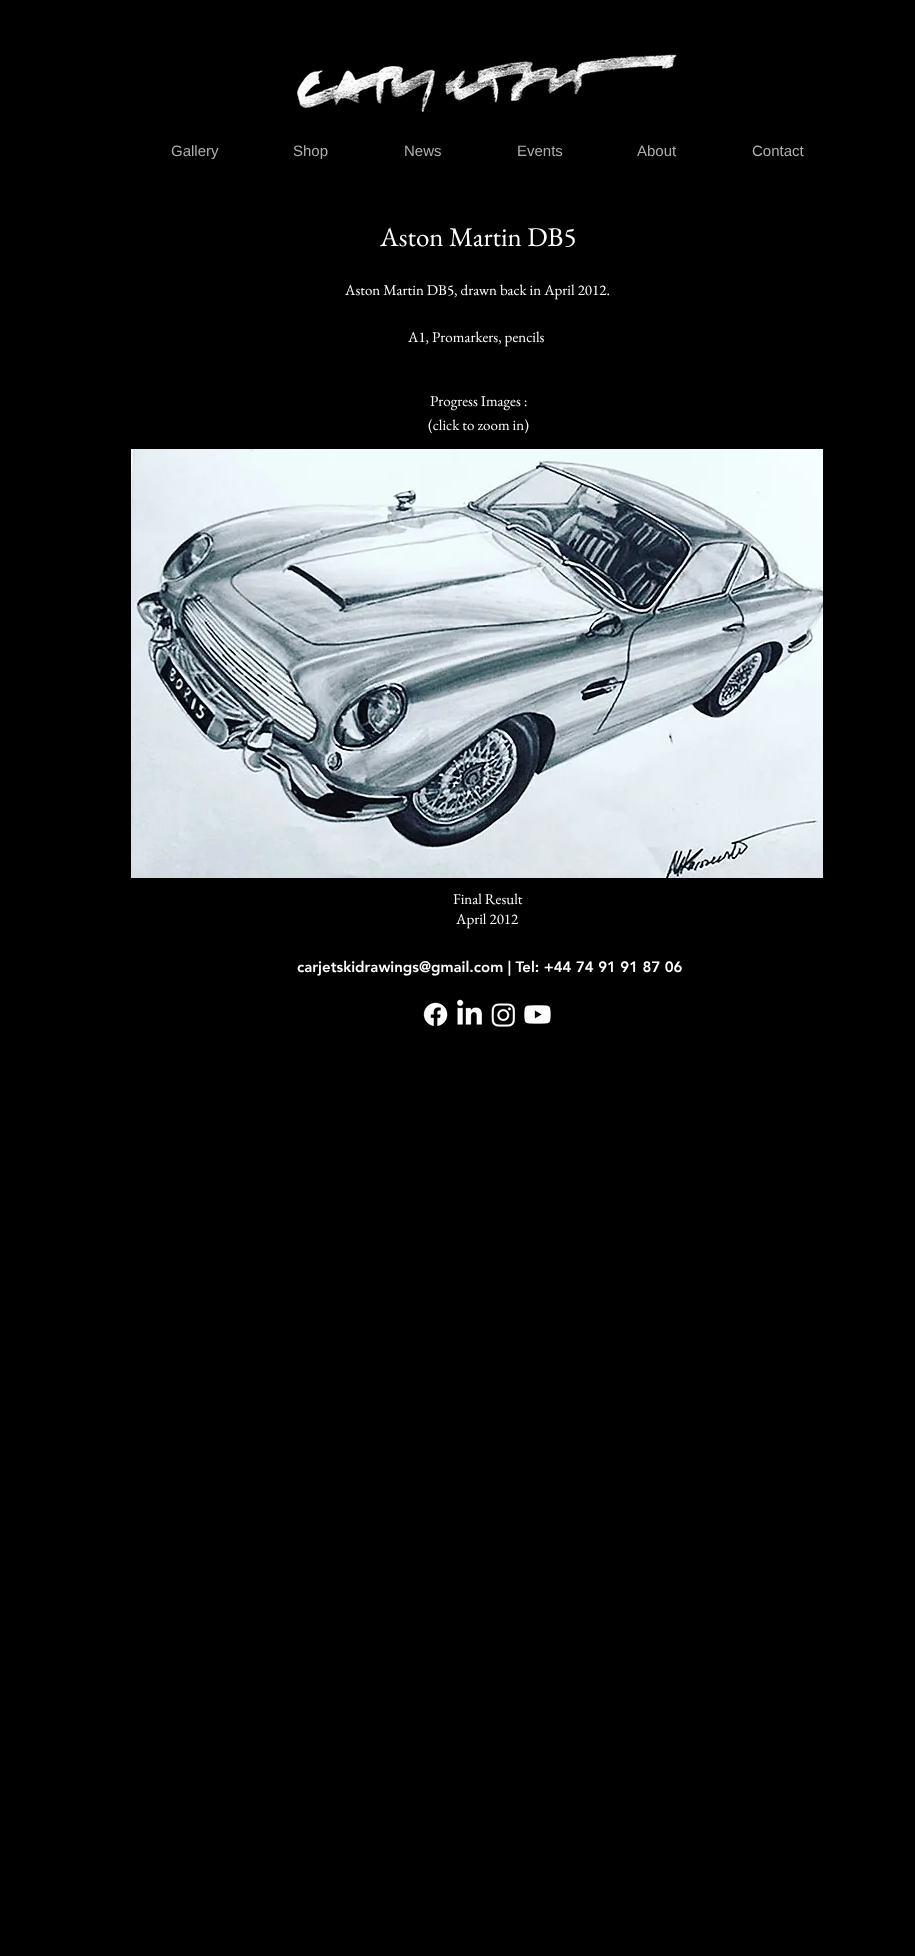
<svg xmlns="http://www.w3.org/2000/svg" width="915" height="1956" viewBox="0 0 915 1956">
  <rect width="100%" height="100%" fill="rgb(0,0,0)"/>
  <image x="296" y="54" width="381" height="59" href="pic1.png"/>
  <g font-family="Liberation Sans" font-size="15" fill="rgb(175,175,175)">
    <text x="171" y="156">Gallery</text>
    <text x="293" y="156">Shop</text>
    <text x="404" y="156">News</text>
    <text x="517" y="156">Events</text>
    <text x="637" y="156">About</text>
    <text x="752" y="156">Contact</text>
  </g>
  <text x="380" y="246" font-family="EB Garamond" font-size="27" fill="rgb(255,255,255)">Aston Martin DB5</text>
  <g font-family="EB Garamond" font-size="15" fill="rgb(255,255,255)">
    <text x="345" y="295">Aston Martin DB5, drawn back in April 2012.</text>
    <text x="408" y="342">A1, Promarkers, pencils</text>
    <text x="430" y="406">Progress Images :</text>
    <text x="428" y="430">(click to zoom in)</text>
  </g>
  <image x="131" y="449" width="692" height="429" href="pic2.png"/>
  <g font-family="EB Garamond" font-size="15" fill="rgb(255,255,255)">
    <text x="453" y="904">Final Result</text>
    <text x="456" y="924">April 2012</text>
  </g>
  <text x="297" y="972" font-family="'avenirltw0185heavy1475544'" font-size="15" font-weight="900" fill="rgb(255,255,255)">carjetskidrawings@gmail.com | Tel: +44 74 91 91 87 06</text>
  <image x="423" y="1002" width="25" height="25" href="pic3.png"/>
  <image x="457" y="999" width="25" height="26" href="pic4.png"/>
  <image x="491" y="1003" width="24" height="24" href="pic5.png"/>
  <image x="524" y="1005" width="27" height="19" href="pic6.png"/>
</svg>
